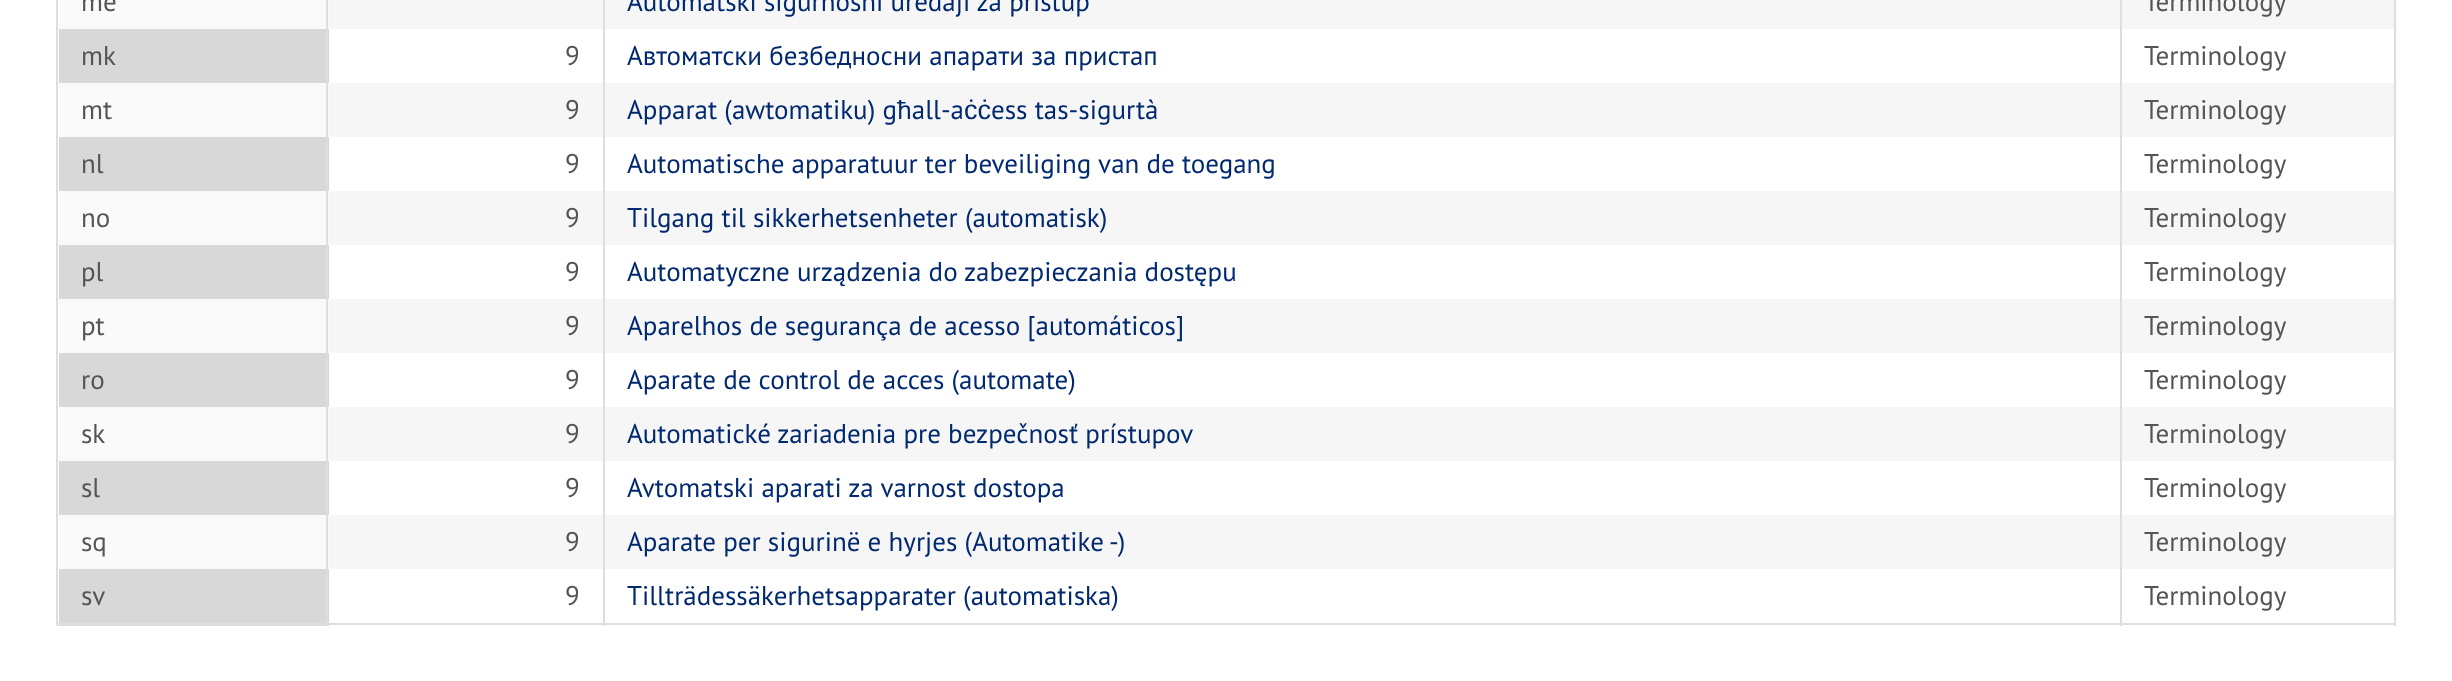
<svg xmlns="http://www.w3.org/2000/svg" width="2452" height="681" viewBox="0 0 2452 681">
  <rect width="100%" height="100%" fill="rgb(255,255,255)"/>
  <rect x="2394" y="0" width="2" height="626" fill="rgb(222,222,222)"/>
  <rect x="59" y="569" width="270" height="57" fill="rgb(216,216,216)"/>
  <rect x="56" y="623" width="2340" height="2" fill="rgb(222,222,222)"/>
  <rect x="56" y="0" width="2" height="626" fill="rgb(222,222,222)"/>
  <rect x="329" y="0" width="2065" height="29" fill="rgb(246,246,246)"/>
  <rect x="59" y="0" width="270" height="29" fill="rgb(250,250,250)"/>
  <text x="81" y="11" font-family="PT Sans" font-size="27" fill="rgb(85,85,85)">me</text>
  <text x="627" y="11" font-family="PT Sans" font-size="27" fill="rgb(0,41,112)">Automatski sigurnosni uređaji za pristup</text>
  <text x="2144" y="11" font-family="PT Sans" font-size="27" fill="rgb(85,85,85)">Terminology</text>
  <rect x="59" y="29" width="270" height="54" fill="rgb(216,216,216)"/>
  <g font-family="PT Sans" font-size="27" fill="rgb(85,85,85)">
    <text x="81" y="65">mk</text>
    <text x="565" y="65">9</text>
  </g>
  <text x="627" y="65" font-family="PT Sans" font-size="27" fill="rgb(0,41,112)">Автоматски безбедносни апарати за пристап</text>
  <text x="2144" y="65" font-family="PT Sans" font-size="27" fill="rgb(85,85,85)">Terminology</text>
  <rect x="329" y="83" width="2065" height="54" fill="rgb(246,246,246)"/>
  <rect x="59" y="83" width="270" height="54" fill="rgb(250,250,250)"/>
  <g font-family="PT Sans" font-size="27" fill="rgb(85,85,85)">
    <text x="81" y="119">mt</text>
    <text x="565" y="119">9</text>
  </g>
  <text x="627" y="119" font-family="PT Sans" font-size="27" fill="rgb(0,41,112)">Apparat (awtomatiku) għall-a</text>
  <text x="964" y="119" font-family="Liberation Sans" font-size="27" fill="rgb(0,41,112)">ċċ</text>
  <text x="991" y="119" font-family="PT Sans" font-size="27" fill="rgb(0,41,112)">ess tas-sigurtà</text>
  <text x="2144" y="119" font-family="PT Sans" font-size="27" fill="rgb(85,85,85)">Terminology</text>
  <rect x="59" y="137" width="270" height="54" fill="rgb(216,216,216)"/>
  <g font-family="PT Sans" font-size="27" fill="rgb(85,85,85)">
    <text x="81" y="173">nl</text>
    <text x="565" y="173">9</text>
  </g>
  <text x="627" y="173" font-family="PT Sans" font-size="27" fill="rgb(0,41,112)">Automatische apparatuur ter beveiliging van de toegang</text>
  <text x="2144" y="173" font-family="PT Sans" font-size="27" fill="rgb(85,85,85)">Terminology</text>
  <rect x="329" y="191" width="2065" height="54" fill="rgb(246,246,246)"/>
  <rect x="59" y="191" width="270" height="54" fill="rgb(250,250,250)"/>
  <g font-family="PT Sans" font-size="27" fill="rgb(85,85,85)">
    <text x="81" y="227">no</text>
    <text x="565" y="227">9</text>
  </g>
  <text x="627" y="227" font-family="PT Sans" font-size="27" fill="rgb(0,41,112)">Tilgang til sikkerhetsenheter (automatisk)</text>
  <text x="2144" y="227" font-family="PT Sans" font-size="27" fill="rgb(85,85,85)">Terminology</text>
  <rect x="59" y="245" width="270" height="54" fill="rgb(216,216,216)"/>
  <g font-family="PT Sans" font-size="27" fill="rgb(85,85,85)">
    <text x="81" y="281">pl</text>
    <text x="565" y="281">9</text>
  </g>
  <text x="627" y="281" font-family="PT Sans" font-size="27" fill="rgb(0,41,112)">Automatyczne urządzenia do zabezpieczania dostępu</text>
  <text x="2144" y="281" font-family="PT Sans" font-size="27" fill="rgb(85,85,85)">Terminology</text>
  <rect x="329" y="299" width="2065" height="54" fill="rgb(246,246,246)"/>
  <rect x="59" y="299" width="270" height="54" fill="rgb(250,250,250)"/>
  <g font-family="PT Sans" font-size="27" fill="rgb(85,85,85)">
    <text x="81" y="335">pt</text>
    <text x="565" y="335">9</text>
  </g>
  <text x="627" y="335" font-family="PT Sans" font-size="27" fill="rgb(0,41,112)">Aparelhos de segurança de acesso [automáticos]</text>
  <text x="2144" y="335" font-family="PT Sans" font-size="27" fill="rgb(85,85,85)">Terminology</text>
  <rect x="59" y="353" width="270" height="54" fill="rgb(216,216,216)"/>
  <g font-family="PT Sans" font-size="27" fill="rgb(85,85,85)">
    <text x="81" y="389">ro</text>
    <text x="565" y="389">9</text>
  </g>
  <text x="627" y="389" font-family="PT Sans" font-size="27" fill="rgb(0,41,112)">Aparate de control de acces (automate)</text>
  <text x="2144" y="389" font-family="PT Sans" font-size="27" fill="rgb(85,85,85)">Terminology</text>
  <rect x="329" y="407" width="2065" height="54" fill="rgb(246,246,246)"/>
  <rect x="59" y="407" width="270" height="54" fill="rgb(250,250,250)"/>
  <g font-family="PT Sans" font-size="27" fill="rgb(85,85,85)">
    <text x="81" y="443">sk</text>
    <text x="565" y="443">9</text>
  </g>
  <text x="627" y="443" font-family="PT Sans" font-size="27" fill="rgb(0,41,112)">Automatické zariadenia pre bezpečnosť prístupov</text>
  <text x="2144" y="443" font-family="PT Sans" font-size="27" fill="rgb(85,85,85)">Terminology</text>
  <rect x="59" y="461" width="270" height="54" fill="rgb(216,216,216)"/>
  <g font-family="PT Sans" font-size="27" fill="rgb(85,85,85)">
    <text x="81" y="497">sl</text>
    <text x="565" y="497">9</text>
  </g>
  <text x="627" y="497" font-family="PT Sans" font-size="27" fill="rgb(0,41,112)">Avtomatski aparati za varnost dostopa</text>
  <text x="2144" y="497" font-family="PT Sans" font-size="27" fill="rgb(85,85,85)">Terminology</text>
  <rect x="329" y="515" width="2065" height="54" fill="rgb(246,246,246)"/>
  <rect x="59" y="515" width="270" height="54" fill="rgb(250,250,250)"/>
  <g font-family="PT Sans" font-size="27" fill="rgb(85,85,85)">
    <text x="81" y="551">sq</text>
    <text x="565" y="551">9</text>
  </g>
  <text x="627" y="551" font-family="PT Sans" font-size="27" fill="rgb(0,41,112)">Aparate per sigurinë e hyrjes (Automatike -)</text>
  <g font-family="PT Sans" font-size="27" fill="rgb(85,85,85)">
    <text x="2144" y="551">Terminology</text>
    <text x="81" y="605">sv</text>
  </g>
  <rect x="326" y="0" width="2" height="626" fill="rgb(222,222,222)"/>
  <text x="565" y="605" font-family="PT Sans" font-size="27" fill="rgb(85,85,85)">9</text>
  <rect x="603" y="0" width="2" height="626" fill="rgb(222,222,222)"/>
  <text x="627" y="605" font-family="PT Sans" font-size="27" fill="rgb(0,41,112)">Tillträdessäkerhetsapparater (automatiska)</text>
  <rect x="2120" y="0" width="2" height="626" fill="rgb(222,222,222)"/>
  <text x="2144" y="605" font-family="PT Sans" font-size="27" fill="rgb(85,85,85)">Terminology</text>
</svg>
